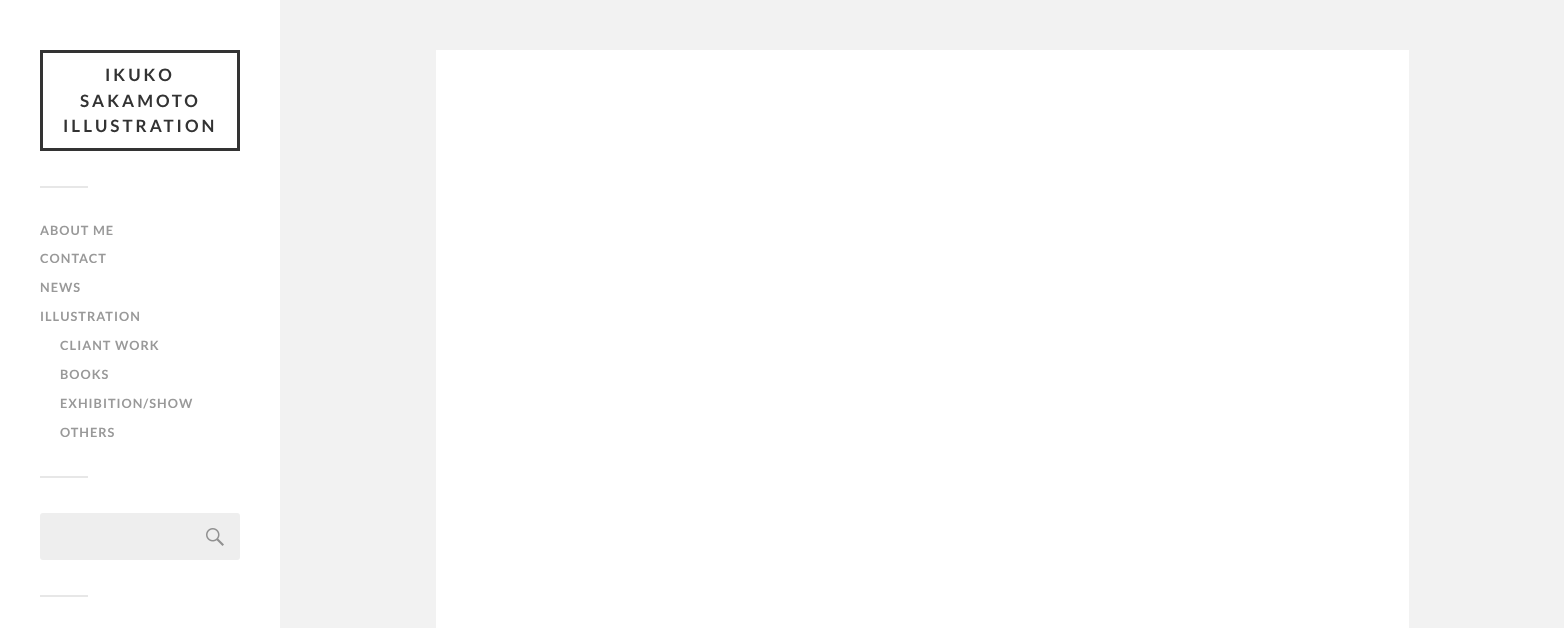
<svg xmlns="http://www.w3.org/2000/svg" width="1564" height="628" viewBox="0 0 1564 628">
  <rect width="100%" height="100%" fill="rgb(242,242,242)"/>
  <rect x="0" y="0" width="280" height="628" fill="rgb(255,255,255)"/>
  <rect x="41.5" y="51.5" width="197" height="98" fill="none" stroke="rgb(51,51,51)" stroke-width="3"/>
  <g font-family="Lato" font-size="17" font-weight="bold" letter-spacing="3" fill="rgb(51,51,51)">
    <text x="105" y="81">IKUKO</text>
    <text x="80" y="107">SAKAMOTO</text>
    <text x="63" y="132">ILLUSTRATION</text>
  </g>
  <rect x="40" y="186" width="48" height="2" fill="rgb(231,231,231)"/>
  <g font-family="Lato" font-size="12.75" font-weight="bold" letter-spacing="1" fill="rgb(153,153,153)">
    <text x="40" y="235">ABOUT ME</text>
    <text x="40" y="263">CONTACT</text>
    <text x="40" y="292">NEWS</text>
    <text x="40" y="321">ILLUSTRATION</text>
    <text x="60" y="350">CLIANT WORK</text>
    <text x="60" y="379">BOOKS</text>
    <text x="60" y="408">EXHIBITION/SHOW</text>
    <text x="60" y="437">OTHERS</text>
  </g>
  <rect x="40" y="476" width="48" height="2" fill="rgb(231,231,231)"/>
  <rect x="40" y="513" width="200" height="47" rx="3" fill="rgb(238,238,238)"/>
  <image x="206" y="528" width="18" height="18" href="pic1.png"/>
  <rect x="40" y="595" width="48" height="2" fill="rgb(231,231,231)"/>
  <rect x="436" y="50" width="973" height="578" fill="rgb(255,255,255)"/>
</svg>
